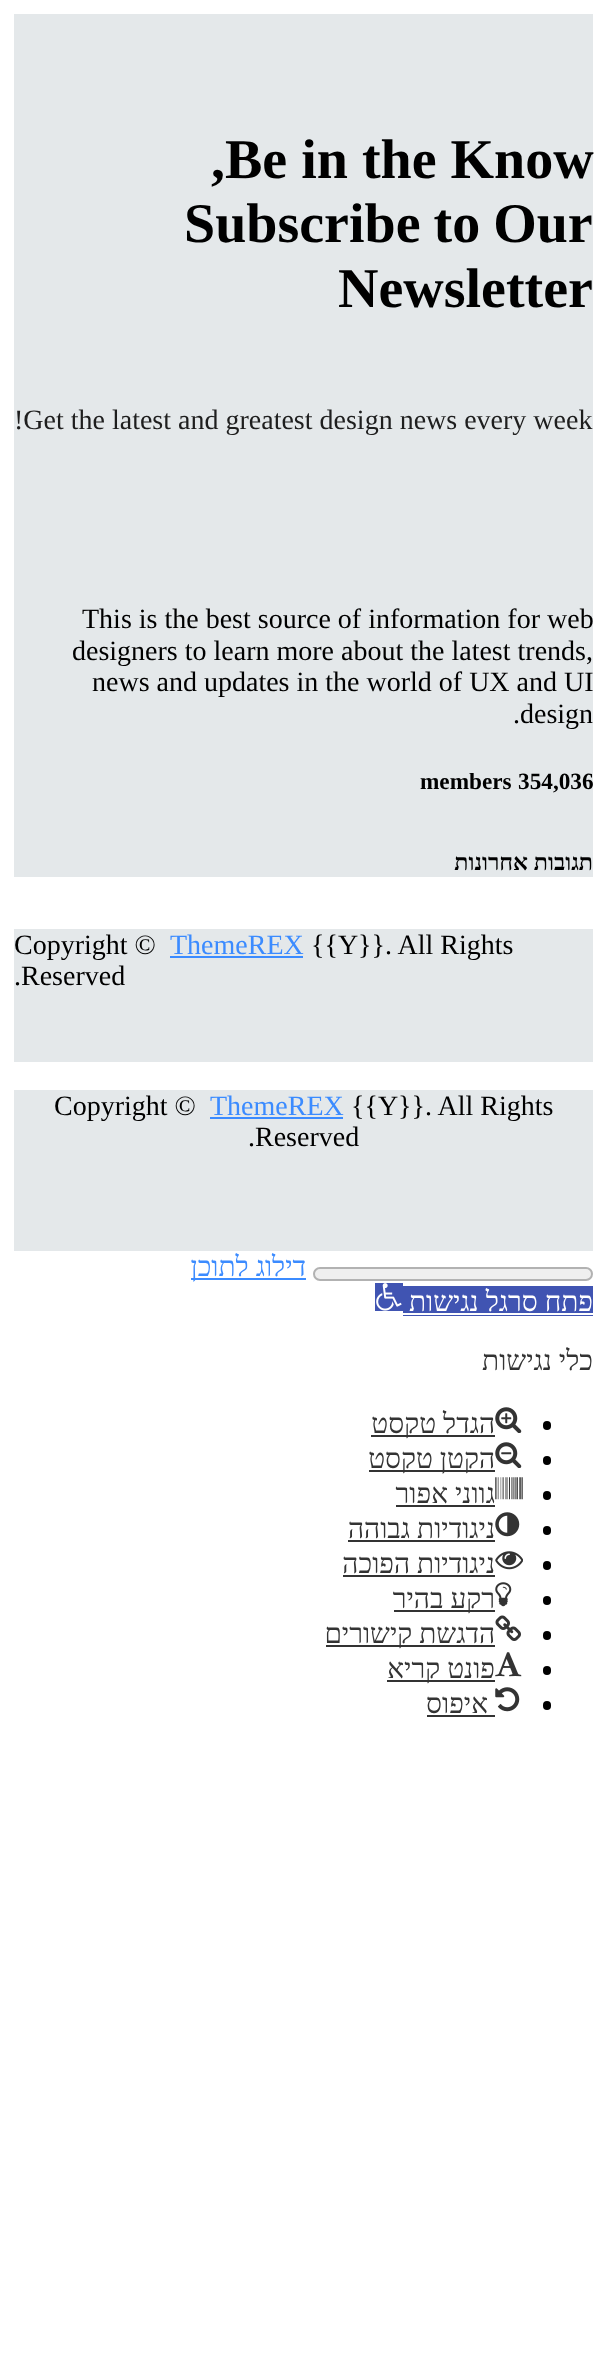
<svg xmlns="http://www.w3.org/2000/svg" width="606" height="2361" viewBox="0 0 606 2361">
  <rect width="100%" height="100%" fill="rgb(255,255,255)"/>
  <rect x="14" y="14" width="579" height="863" fill="rgb(228,232,234)"/>
  <g font-family="Liberation Serif" font-size="56" font-weight="bold" fill="rgb(0,0,0)">
    <text x="211" y="178">,Be in the Know</text>
    <text x="184" y="242" word-spacing="-1">Subscribe to Our</text>
    <text x="338" y="307">Newsletter</text>
  </g>
  <text x="14" y="429" font-family="Liberation Serif" font-size="28" fill="rgb(30,30,30)">!Get the latest and greatest design news every week</text>
  <g font-family="Liberation Serif" font-size="28" fill="rgb(0,0,0)">
    <text x="82" y="628">This is the best source of information for web</text>
    <text x="72" y="660">designers to learn more about the latest trends,</text>
    <text x="92" y="691">news and updates in the world of UX and UI</text>
    <text x="513" y="723">.design</text>
  </g>
  <g font-family="Liberation Serif" font-size="23.25" font-weight="bold" fill="rgb(0,0,0)">
    <text x="420" y="789">members</text>
    <text x="518" y="789">354,036</text>
  </g>
  <text x="593" y="870" font-family="Liberation Serif" font-size="23.25" font-weight="bold" direction="rtl" fill="rgb(0,0,0)">תגובות אחרונות</text>
  <rect x="14" y="929" width="579" height="133" fill="rgb(228,232,234)"/>
  <text x="14" y="954" font-family="Liberation Serif" font-size="28" fill="rgb(0,0,0)">Copyright ©</text>
  <text x="170" y="954" font-family="Liberation Serif" font-size="28" fill="rgb(59,139,255)">ThemeREX</text>
  <rect x="170" y="956" width="133" height="2" fill="rgb(59,139,255)"/>
  <g font-family="Liberation Serif" font-size="28" fill="rgb(0,0,0)">
    <text x="311" y="954">{{Y}}. All Rights</text>
    <text x="14" y="985">.Reserved</text>
  </g>
  <rect x="14" y="1090" width="579" height="161" fill="rgb(228,232,234)"/>
  <text x="54" y="1115" font-family="Liberation Serif" font-size="28" fill="rgb(0,0,0)">Copyright ©</text>
  <text x="210" y="1115" font-family="Liberation Serif" font-size="28" fill="rgb(59,139,255)">ThemeREX</text>
  <rect x="210" y="1117" width="133" height="2" fill="rgb(59,139,255)"/>
  <g font-family="Liberation Serif" font-size="28" fill="rgb(0,0,0)">
    <text x="351" y="1115">{{Y}}. All Rights</text>
    <text x="248" y="1146">.Reserved</text>
  </g>
  <rect x="191" y="1278" width="115" height="2" fill="rgb(59,139,255)"/>
  <text x="306" y="1276" font-family="Liberation Serif" font-size="28" direction="rtl" fill="rgb(59,139,255)">דילוג לתוכן</text>
  <rect x="314" y="1268" width="278" height="12" rx="6" fill="rgb(239,239,239)" stroke="rgb(178,178,178)" stroke-width="2"/>
  <rect x="375" y="1283" width="28" height="28" fill="rgb(64,84,178)"/>
  <image x="376" y="1283" width="26" height="28" href="pic1.png"/>
  <rect x="403" y="1286" width="190" height="30" fill="rgb(64,84,178)"/>
  <text x="593" y="1311" font-family="Liberation Serif" font-size="28" direction="rtl" fill="rgb(255,255,255)">פתח סרגל נגישות</text>
  <rect x="403" y="1313" width="190" height="2" fill="rgb(255,255,255)"/>
  <text x="593" y="1370" font-family="Liberation Serif" font-size="28" direction="rtl" fill="rgb(51,51,51)">כלי נגישות</text>
  <rect x="371" y="1435" width="124" height="2" fill="rgb(51,51,51)"/>
  <text x="495" y="1433" font-family="Liberation Serif" font-size="28" direction="rtl" fill="rgb(51,51,51)">הגדל טקסט</text>
  <image x="495" y="1407" width="27" height="26" href="pic2.png"/>
  <rect x="543" y="1421" width="8" height="9" rx="4" fill="rgb(0,0,0)"/>
  <rect x="369" y="1470" width="126" height="2" fill="rgb(51,51,51)"/>
  <text x="495" y="1468" font-family="Liberation Serif" font-size="28" direction="rtl" fill="rgb(51,51,51)">הקטן טקסט</text>
  <image x="495" y="1442" width="27" height="26" href="pic3.png"/>
  <rect x="543" y="1456" width="8" height="9" rx="4" fill="rgb(0,0,0)"/>
  <text x="495" y="1503" font-family="Liberation Serif" font-size="28" direction="rtl" fill="rgb(51,51,51)">גווני אפור</text>
  <rect x="396" y="1505" width="99" height="2" fill="rgb(51,51,51)"/>
  <image x="495" y="1477" width="28" height="23" href="pic4.png"/>
  <rect x="543" y="1491" width="8" height="9" rx="4" fill="rgb(0,0,0)"/>
  <text x="495" y="1538" font-family="Liberation Serif" font-size="28" direction="rtl" fill="rgb(51,51,51)">ניגודיות גבוהה</text>
  <rect x="348" y="1540" width="147" height="2" fill="rgb(51,51,51)"/>
  <image x="495" y="1512" width="25" height="25" href="pic5.png"/>
  <rect x="543" y="1526" width="8" height="9" rx="4" fill="rgb(0,0,0)"/>
  <text x="495" y="1573" font-family="Liberation Serif" font-size="28" direction="rtl" fill="rgb(51,51,51)">ניגודיות הפוכה</text>
  <rect x="343" y="1575" width="152" height="2" fill="rgb(51,51,51)"/>
  <image x="495" y="1551" width="28" height="19" href="pic6.png"/>
  <rect x="543" y="1561" width="8" height="9" rx="4" fill="rgb(0,0,0)"/>
  <rect x="394" y="1610" width="101" height="2" fill="rgb(51,51,51)"/>
  <text x="495" y="1608" font-family="Liberation Serif" font-size="28" direction="rtl" fill="rgb(51,51,51)">רקע בהיר</text>
  <image x="495" y="1582" width="17" height="25" href="pic7.png"/>
  <rect x="543" y="1596" width="8" height="9" rx="4" fill="rgb(0,0,0)"/>
  <rect x="326" y="1645" width="169" height="2" fill="rgb(51,51,51)"/>
  <text x="495" y="1643" font-family="Liberation Serif" font-size="28" direction="rtl" fill="rgb(51,51,51)">הדגשת קישורים</text>
  <image x="495" y="1615" width="26" height="26" href="pic8.png"/>
  <rect x="543" y="1631" width="8" height="9" rx="4" fill="rgb(0,0,0)"/>
  <rect x="387" y="1680" width="108" height="2" fill="rgb(51,51,51)"/>
  <text x="495" y="1678" font-family="Liberation Serif" font-size="28" direction="rtl" fill="rgb(51,51,51)">פונט קריא</text>
  <image x="495" y="1652" width="27" height="25" href="pic9.png"/>
  <rect x="543" y="1666" width="8" height="9" rx="4" fill="rgb(0,0,0)"/>
  <text x="488" y="1713" font-family="Liberation Serif" font-size="28" direction="rtl" fill="rgb(51,51,51)">איפוס</text>
  <rect x="427" y="1715" width="68" height="2" fill="rgb(51,51,51)"/>
  <image x="495" y="1687" width="25" height="25" href="pic10.png"/>
  <rect x="543" y="1701" width="8" height="9" rx="4" fill="rgb(0,0,0)"/>
</svg>
